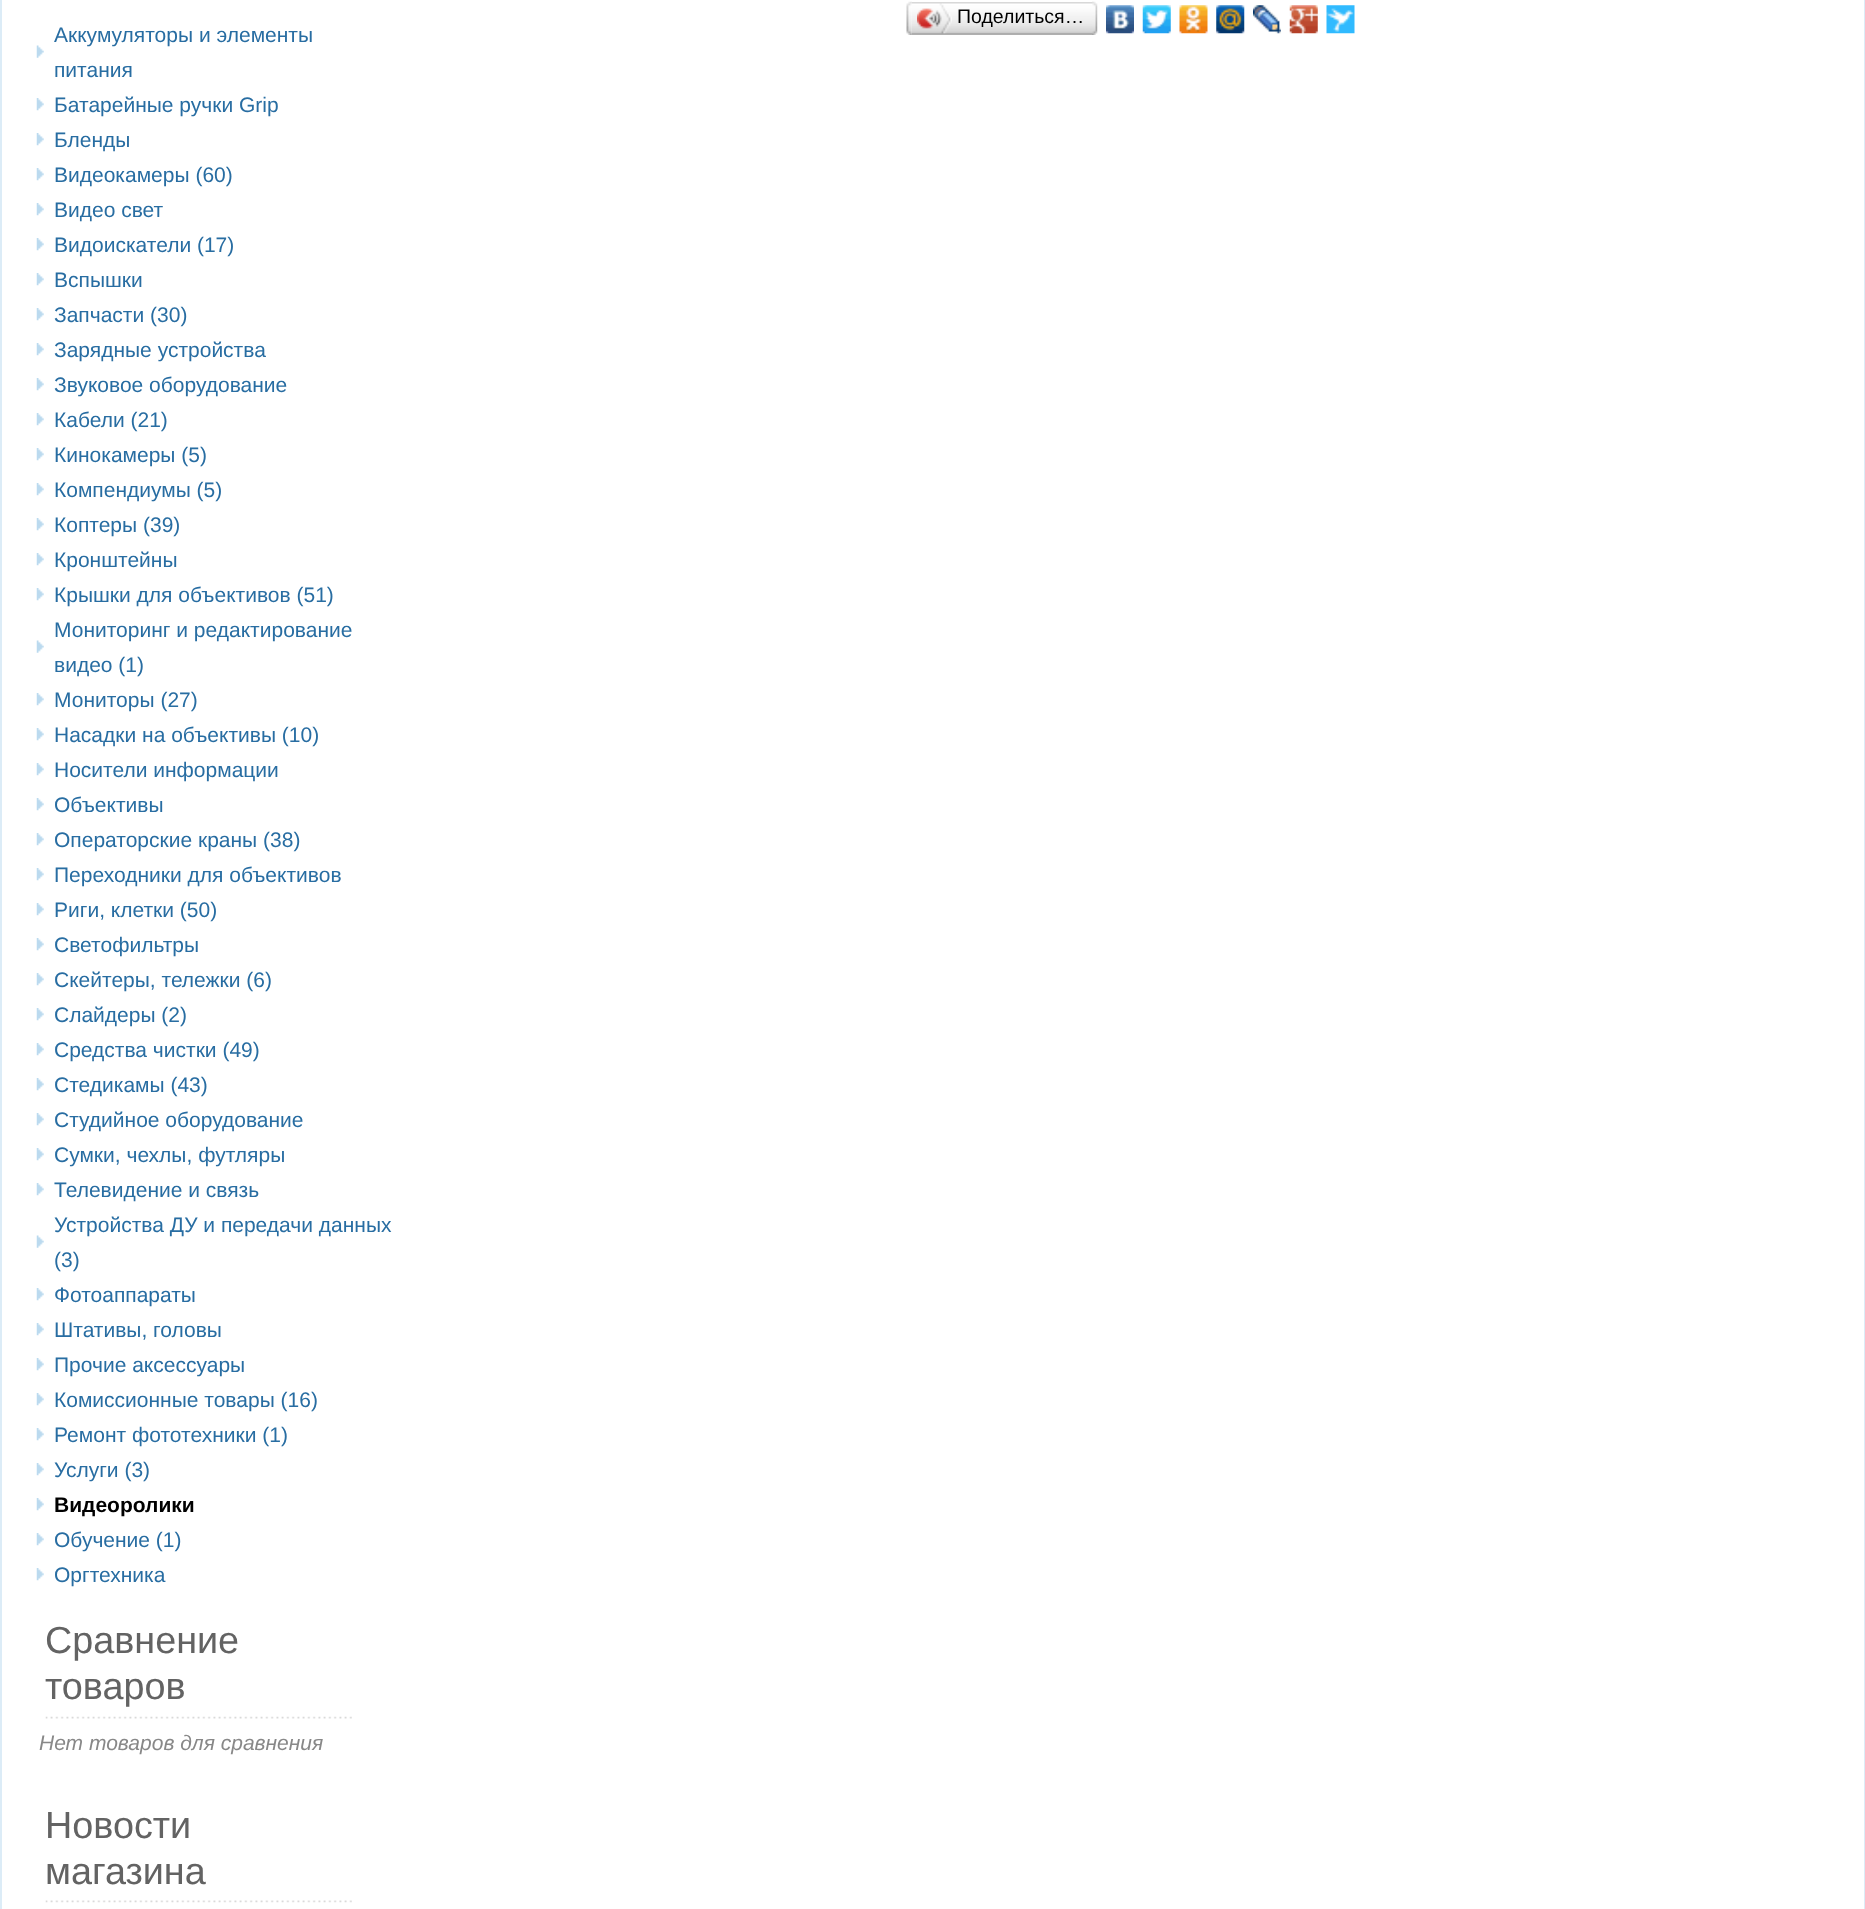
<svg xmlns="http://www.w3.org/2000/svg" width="1865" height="1909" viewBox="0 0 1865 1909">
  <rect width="100%" height="100%" fill="rgb(255,255,255)"/>
  <rect x="1864" y="0" width="1" height="1909" fill="rgb(220,236,247)"/>
  <rect x="0" y="0" width="2" height="1909" fill="rgb(220,236,247)"/>
  <image x="911" y="2" width="181" height="33" href="pic1.png"/>
  <image x="906" y="1" width="6" height="34" href="pic2.png"/>
  <image x="917" y="3" width="35" height="31" href="pic3.png"/>
  <text x="957" y="23" font-family="Liberation Sans" font-size="19.5" fill="rgb(0,0,0)">Поделиться…</text>
  <image x="1092" y="1" width="6" height="34" href="pic4.png"/>
  <image x="1106" y="5" width="28" height="29" href="pic5.png"/>
  <image x="1142" y="5" width="29" height="29" href="pic6.png"/>
  <image x="1179" y="5" width="29" height="29" href="pic7.png"/>
  <image x="1216" y="5" width="29" height="29" href="pic8.png"/>
  <image x="1253" y="5" width="28" height="29" href="pic9.png"/>
  <image x="1289" y="5" width="29" height="29" href="pic10.png"/>
  <image x="1326" y="5" width="29" height="29" href="pic11.png"/>
  <image x="36" y="45" width="8" height="13" href="pic12.png"/>
  <g font-family="Liberation Sans" font-size="21" fill="rgb(40,109,162)">
    <text>
      <tspan x="54" y="42">Аккумуляторы и элементы</tspan>
      <tspan x="54" y="77">питания</tspan>
    </text>
  </g>
  <image x="36" y="98" width="8" height="13" href="pic13.png"/>
  <text x="54" y="112" font-family="Liberation Sans" font-size="21" fill="rgb(40,109,162)">Батарейные ручки Grip</text>
  <image x="36" y="133" width="8" height="13" href="pic14.png"/>
  <text x="54" y="147" font-family="Liberation Sans" font-size="21" fill="rgb(40,109,162)">Бленды</text>
  <image x="36" y="168" width="8" height="13" href="pic13.png"/>
  <text x="54" y="182" font-family="Liberation Sans" font-size="21" fill="rgb(40,109,162)">Видеокамеры (60)</text>
  <image x="36" y="203" width="8" height="13" href="pic14.png"/>
  <text x="54" y="217" font-family="Liberation Sans" font-size="21" fill="rgb(40,109,162)">Видео свет</text>
  <image x="36" y="238" width="8" height="13" href="pic13.png"/>
  <text x="54" y="252" font-family="Liberation Sans" font-size="21" fill="rgb(40,109,162)">Видоискатели (17)</text>
  <image x="36" y="273" width="8" height="13" href="pic14.png"/>
  <text x="54" y="287" font-family="Liberation Sans" font-size="21" fill="rgb(40,109,162)">Вспышки</text>
  <image x="36" y="308" width="8" height="13" href="pic13.png"/>
  <text x="54" y="322" font-family="Liberation Sans" font-size="21" fill="rgb(40,109,162)">Запчасти (30)</text>
  <image x="36" y="343" width="8" height="13" href="pic14.png"/>
  <text x="54" y="357" font-family="Liberation Sans" font-size="21" fill="rgb(40,109,162)">Зарядные устройства</text>
  <image x="36" y="378" width="8" height="13" href="pic13.png"/>
  <text x="54" y="392" font-family="Liberation Sans" font-size="21" fill="rgb(40,109,162)">Звуковое оборудование</text>
  <image x="36" y="413" width="8" height="13" href="pic14.png"/>
  <text x="54" y="427" font-family="Liberation Sans" font-size="21" fill="rgb(40,109,162)">Кабели (21)</text>
  <image x="36" y="448" width="8" height="13" href="pic13.png"/>
  <text x="54" y="462" font-family="Liberation Sans" font-size="21" fill="rgb(40,109,162)">Кинокамеры (5)</text>
  <image x="36" y="483" width="8" height="13" href="pic14.png"/>
  <text x="54" y="497" font-family="Liberation Sans" font-size="21" fill="rgb(40,109,162)">Компендиумы (5)</text>
  <image x="36" y="518" width="8" height="13" href="pic13.png"/>
  <text x="54" y="532" font-family="Liberation Sans" font-size="21" fill="rgb(40,109,162)">Коптеры (39)</text>
  <image x="36" y="553" width="8" height="13" href="pic14.png"/>
  <text x="54" y="567" font-family="Liberation Sans" font-size="21" fill="rgb(40,109,162)">Кронштейны</text>
  <image x="36" y="588" width="8" height="13" href="pic13.png"/>
  <text x="54" y="602" font-family="Liberation Sans" font-size="21" fill="rgb(40,109,162)">Крышки для объективов (51)</text>
  <image x="36" y="640" width="8" height="13" href="pic15.png"/>
  <g font-family="Liberation Sans" font-size="21" fill="rgb(40,109,162)">
    <text>
      <tspan x="54" y="637">Мониторинг и редактирование</tspan>
      <tspan x="54" y="672">видео (1)</tspan>
    </text>
  </g>
  <image x="36" y="693" width="8" height="13" href="pic13.png"/>
  <text x="54" y="707" font-family="Liberation Sans" font-size="21" fill="rgb(40,109,162)">Мониторы (27)</text>
  <image x="36" y="728" width="8" height="13" href="pic16.png"/>
  <text x="54" y="742" font-family="Liberation Sans" font-size="21" fill="rgb(40,109,162)">Насадки на объективы (10)</text>
  <image x="36" y="763" width="8" height="13" href="pic13.png"/>
  <text x="54" y="777" font-family="Liberation Sans" font-size="21" fill="rgb(40,109,162)">Носители информации</text>
  <image x="36" y="798" width="8" height="13" href="pic13.png"/>
  <text x="54" y="812" font-family="Liberation Sans" font-size="21" fill="rgb(40,109,162)">Объективы</text>
  <image x="36" y="833" width="8" height="13" href="pic14.png"/>
  <text x="54" y="847" font-family="Liberation Sans" font-size="21" fill="rgb(40,109,162)">Операторские краны (38)</text>
  <image x="36" y="868" width="8" height="13" href="pic13.png"/>
  <text x="54" y="882" font-family="Liberation Sans" font-size="21" fill="rgb(40,109,162)">Переходники для объективов</text>
  <image x="36" y="903" width="8" height="13" href="pic14.png"/>
  <text x="54" y="917" font-family="Liberation Sans" font-size="21" fill="rgb(40,109,162)">Риги, клетки (50)</text>
  <image x="36" y="938" width="8" height="13" href="pic13.png"/>
  <text x="54" y="952" font-family="Liberation Sans" font-size="21" fill="rgb(40,109,162)">Светофильтры</text>
  <image x="36" y="973" width="8" height="13" href="pic14.png"/>
  <text x="54" y="987" font-family="Liberation Sans" font-size="21" fill="rgb(40,109,162)">Скейтеры, тележки (6)</text>
  <image x="36" y="1008" width="8" height="13" href="pic13.png"/>
  <text x="54" y="1022" font-family="Liberation Sans" font-size="21" fill="rgb(40,109,162)">Слайдеры (2)</text>
  <image x="36" y="1043" width="8" height="13" href="pic14.png"/>
  <text x="54" y="1057" font-family="Liberation Sans" font-size="21" fill="rgb(40,109,162)">Средства чистки (49)</text>
  <image x="36" y="1078" width="8" height="13" href="pic13.png"/>
  <text x="54" y="1092" font-family="Liberation Sans" font-size="21" fill="rgb(40,109,162)">Стедикамы (43)</text>
  <image x="36" y="1113" width="8" height="13" href="pic14.png"/>
  <text x="54" y="1127" font-family="Liberation Sans" font-size="21" fill="rgb(40,109,162)">Студийное оборудование</text>
  <image x="36" y="1148" width="8" height="13" href="pic13.png"/>
  <text x="54" y="1162" font-family="Liberation Sans" font-size="21" fill="rgb(40,109,162)">Сумки, чехлы, футляры</text>
  <image x="36" y="1183" width="8" height="13" href="pic14.png"/>
  <text x="54" y="1197" font-family="Liberation Sans" font-size="21" fill="rgb(40,109,162)">Телевидение и связь</text>
  <image x="36" y="1235" width="8" height="13" href="pic12.png"/>
  <g font-family="Liberation Sans" font-size="21" fill="rgb(40,109,162)">
    <text>
      <tspan x="54" y="1232">Устройства ДУ и передачи данных</tspan>
      <tspan x="54" y="1267">(3)</tspan>
    </text>
  </g>
  <image x="36" y="1288" width="8" height="13" href="pic14.png"/>
  <text x="54" y="1302" font-family="Liberation Sans" font-size="21" fill="rgb(40,109,162)">Фотоаппараты</text>
  <image x="36" y="1323" width="8" height="13" href="pic13.png"/>
  <text x="54" y="1337" font-family="Liberation Sans" font-size="21" fill="rgb(40,109,162)">Штативы, головы</text>
  <image x="36" y="1358" width="8" height="13" href="pic13.png"/>
  <text x="54" y="1372" font-family="Liberation Sans" font-size="21" fill="rgb(40,109,162)">Прочие аксессуары</text>
  <image x="36" y="1393" width="8" height="13" href="pic14.png"/>
  <text x="54" y="1407" font-family="Liberation Sans" font-size="21" fill="rgb(40,109,162)">Комиссионные товары (16)</text>
  <image x="36" y="1428" width="8" height="13" href="pic13.png"/>
  <text x="54" y="1442" font-family="Liberation Sans" font-size="21" fill="rgb(40,109,162)">Ремонт фототехники (1)</text>
  <image x="36" y="1463" width="8" height="13" href="pic14.png"/>
  <text x="54" y="1477" font-family="Liberation Sans" font-size="21" fill="rgb(40,109,162)">Услуги (3)</text>
  <image x="36" y="1498" width="8" height="13" href="pic13.png"/>
  <text x="54" y="1512" font-family="Liberation Sans" font-size="21" font-weight="bold" fill="rgb(0,0,0)">Видеоролики</text>
  <image x="36" y="1533" width="8" height="13" href="pic14.png"/>
  <text x="54" y="1547" font-family="Liberation Sans" font-size="21" fill="rgb(40,109,162)">Обучение (1)</text>
  <image x="36" y="1568" width="8" height="13" href="pic13.png"/>
  <text x="54" y="1582" font-family="Liberation Sans" font-size="21" fill="rgb(40,109,162)">Оргтехника</text>
  <image x="45" y="1716" width="307" height="3" href="pic17.png"/>
  <g font-family="Liberation Sans" font-size="37.75" fill="rgb(99,99,99)">
    <text>
      <tspan x="45" y="1653">Сравнение</tspan>
      <tspan x="45" y="1699">товаров</tspan>
    </text>
  </g>
  <text x="39" y="1750" font-family="Liberation Sans" font-size="21" font-style="italic" fill="rgb(136,136,136)">Нет товаров для сравнения</text>
  <image x="45" y="1900" width="307" height="3" href="pic18.png"/>
  <g font-family="Liberation Sans" font-size="37.75" fill="rgb(99,99,99)">
    <text>
      <tspan x="45" y="1838">Новости</tspan>
      <tspan x="45" y="1884">магазина</tspan>
    </text>
  </g>
</svg>
